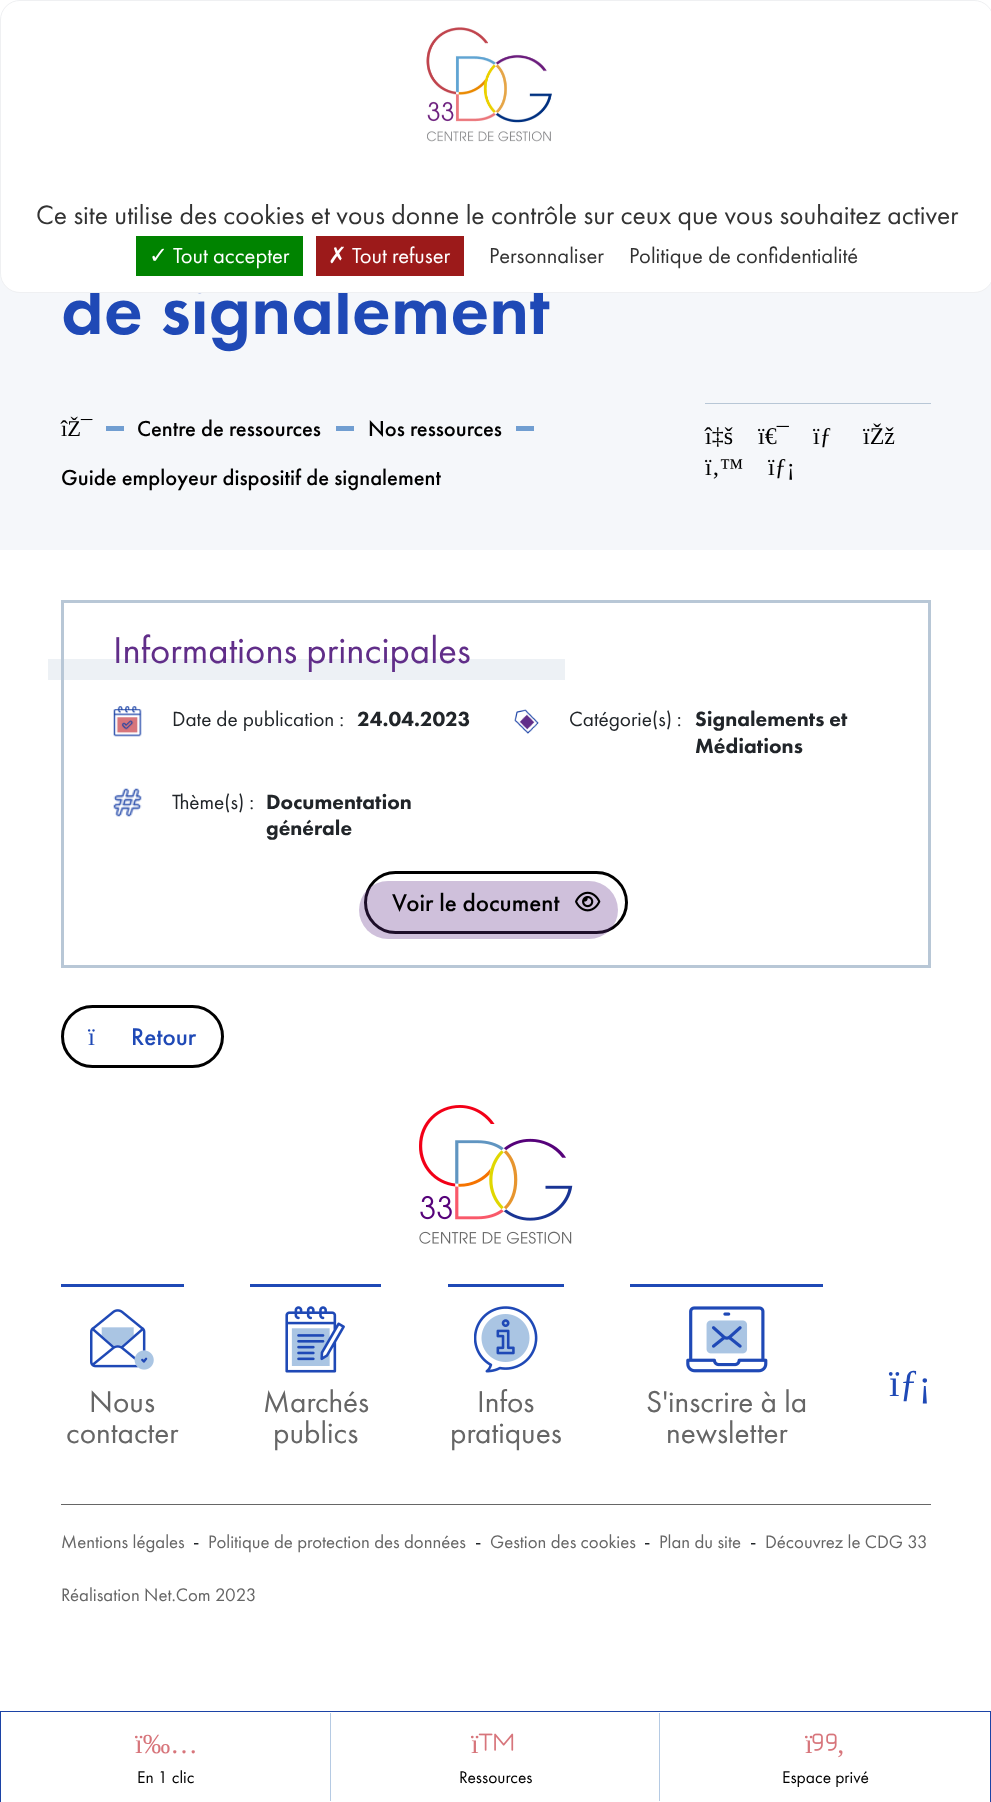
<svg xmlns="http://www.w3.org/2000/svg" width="991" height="1802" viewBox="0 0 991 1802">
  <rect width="100%" height="100%" fill="rgb(255,255,255)"/>
  <rect x="0" y="273" width="991" height="277" fill="rgb(245,247,250)"/>
  <text x="61" y="334" font-family="Futura PT" font-size="75" font-weight="500" fill="rgb(31,73,182)">de signalement</text>
  <rect x="0.5" y="0.5" width="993" height="292" rx="19.5" fill="rgb(255,255,255)" stroke="rgb(239,240,242)"/>
  <image x="426" y="27" width="126" height="115" href="pic1.png"/>
  <text x="36" y="224" font-family="Futura PT" font-size="27.5" fill="rgb(51,51,51)">Ce site utilise des cookies et vous donne le contrôle sur ceux que vous souhaitez activer</text>
  <rect x="136" y="236" width="167" height="40" fill="rgb(0,131,0)"/>
  <text x="149" y="263" font-family="DejaVu Sans" font-size="22.5" fill="rgb(255,255,255)">✓</text>
  <text x="173" y="263" font-family="Futura PT" font-size="22.5" fill="rgb(255,255,255)">Tout accepter</text>
  <rect x="316" y="236" width="148" height="40" fill="rgb(156,26,26)"/>
  <text x="328" y="263" font-family="DejaVu Sans" font-size="22.5" fill="rgb(255,255,255)">✗</text>
  <text x="352" y="263" font-family="Futura PT" font-size="22.5" fill="rgb(255,255,255)">Tout refuser</text>
  <g font-family="Futura PT" font-size="22.5" fill="rgb(51,51,51)">
    <text x="489" y="263">Personnaliser</text>
    <text x="629" y="263">Politique de confidentialité</text>
  </g>
  <text x="61" y="436" font-family="Liberation Serif" font-size="22.5" fill="rgb(0,0,0)">îŽ¯</text>
  <rect x="106" y="426" width="18" height="5" fill="rgb(113,158,209)"/>
  <text x="137" y="436" font-family="'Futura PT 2'" font-size="22.5" font-weight="500" fill="rgb(0,0,0)">Centre de ressources</text>
  <rect x="336" y="426" width="18" height="5" fill="rgb(113,158,209)"/>
  <text x="368" y="436" font-family="'Futura PT 2'" font-size="22.5" font-weight="500" fill="rgb(0,0,0)">Nos ressources</text>
  <rect x="516" y="426" width="18" height="5" fill="rgb(113,158,209)"/>
  <text x="61" y="485" font-family="'Futura PT 2'" font-size="22.5" font-weight="500" fill="rgb(0,0,0)">Guide employeur dispositif de signalement</text>
  <rect x="705" y="403" width="226" height="1" fill="rgb(184,199,214)"/>
  <g font-family="Liberation Serif" font-size="24" fill="rgb(0,0,0)">
    <text x="705" y="444">î‡š</text>
    <text x="758" y="444">ï€¯</text>
    <text x="813" y="444">ïƒ</text>
    <text x="863" y="444">ïŽž</text>
    <text x="705" y="475">ï‚™</text>
    <text x="768" y="475">ïƒ¡</text>
  </g>
  <rect x="48" y="659" width="517" height="21" fill="rgb(237,241,245)"/>
  <rect x="62.5" y="601.5" width="867" height="365" fill="none" stroke="rgb(184,199,214)" stroke-width="3"/>
  <text x="113" y="663" font-family="Futura PT" font-size="38.75" fill="rgb(97,46,137)">Informations principales</text>
  <image x="113" y="706" width="29" height="31" href="pic2.png"/>
  <text x="172" y="726" font-family="Futura PT" font-size="21.25" fill="rgb(33,37,41)">Date de publication :</text>
  <text x="357" y="726" font-family="Futura PT" font-size="21.25" font-weight="900" fill="rgb(33,37,41)">24.04.2023</text>
  <image x="514" y="709" width="25" height="25" href="pic3.png"/>
  <text x="569" y="726" font-family="Futura PT" font-size="21.25" fill="rgb(33,37,41)">Catégorie(s) :</text>
  <g font-family="Futura PT" font-size="21.25" font-weight="900" fill="rgb(33,37,41)">
    <text>
      <tspan x="695" y="726">Signalements et</tspan>
      <tspan x="695" y="753">Médiations</tspan>
    </text>
  </g>
  <image x="113" y="788" width="29" height="29" href="pic4.png"/>
  <text x="172" y="809" font-family="Futura PT" font-size="21.25" fill="rgb(33,37,41)">Thème(s) :</text>
  <g font-family="Futura PT" font-size="21.25" font-weight="900" fill="rgb(33,37,41)">
    <text>
      <tspan x="266" y="809">Documentation</tspan>
      <tspan x="266" y="835">générale</tspan>
    </text>
  </g>
  <rect x="365.5" y="872.5" width="261" height="60" rx="30" fill="none" stroke="rgb(0,0,0)" stroke-width="3"/>
  <rect x="359" y="881" width="259" height="58" rx="29" fill="rgba(97,46,137,0.3)"/>
  <text x="392" y="911" font-family="'Futura PT 2'" font-size="25" font-weight="500" fill="rgb(0,0,0)">Voir le document</text>
  <image x="575" y="891" width="26" height="21" href="pic5.png"/>
  <rect x="62.5" y="1006.5" width="160" height="60" rx="30" fill="none" stroke="rgb(0,0,0)" stroke-width="3"/>
  <text x="88" y="1045" font-family="Liberation Serif" font-size="25" fill="rgb(31,73,182)">ï</text>
  <text x="131" y="1045" font-family="'Futura PT 2'" font-size="25" font-weight="500" fill="rgb(31,73,182)">Retour</text>
  <image x="419" y="1105" width="154" height="139" href="pic6.png"/>
  <rect x="61" y="1284" width="123" height="3" fill="rgb(31,73,182)"/>
  <image x="90" y="1309" width="64" height="61" href="pic7.png"/>
  <g font-family="Futura PT" font-size="31.25" fill="rgb(102,102,102)">
    <text x="89" y="1412">Nous</text>
    <text x="66" y="1443">contacter</text>
  </g>
  <rect x="250" y="1284" width="131" height="3" fill="rgb(31,73,182)"/>
  <image x="285" y="1306" width="60" height="67" href="pic8.png"/>
  <g font-family="Futura PT" font-size="31.25" fill="rgb(102,102,102)">
    <text x="263" y="1412">Marchés</text>
    <text x="273" y="1443">publics</text>
  </g>
  <rect x="448" y="1284" width="116" height="3" fill="rgb(31,73,182)"/>
  <image x="474" y="1306" width="64" height="67" href="pic9.png"/>
  <g font-family="Futura PT" font-size="31.25" fill="rgb(102,102,102)">
    <text x="477" y="1412">Infos</text>
    <text x="450" y="1443">pratiques</text>
  </g>
  <rect x="630" y="1284" width="193" height="3" fill="rgb(31,73,182)"/>
  <image x="686" y="1306" width="82" height="67" href="pic10.png"/>
  <g font-family="Futura PT" font-size="31.25" fill="rgb(102,102,102)">
    <text x="646" y="1412">S'inscrire à la</text>
    <text x="666" y="1443">newsletter</text>
  </g>
  <text x="889" y="1396" font-family="Liberation Serif" font-size="38" fill="rgb(31,73,182)">ïƒ¡</text>
  <rect x="61" y="1504" width="870" height="1" fill="rgb(102,102,102)"/>
  <text x="61" y="1548" font-family="Futura PT" font-size="18.75" fill="rgb(102,102,102)">Mentions légales</text>
  <text x="193" y="1548" font-family="Futura PT" font-size="20" fill="rgb(33,37,41)">-</text>
  <text x="208" y="1548" font-family="Futura PT" font-size="18.75" fill="rgb(102,102,102)">Politique de protection des données</text>
  <text x="475" y="1548" font-family="Futura PT" font-size="20" fill="rgb(33,37,41)">-</text>
  <text x="490" y="1548" font-family="Futura PT" font-size="18.75" fill="rgb(102,102,102)">Gestion des cookies</text>
  <text x="644" y="1548" font-family="Futura PT" font-size="20" fill="rgb(33,37,41)">-</text>
  <text x="659" y="1548" font-family="Futura PT" font-size="18.75" fill="rgb(102,102,102)">Plan du site</text>
  <text x="750" y="1548" font-family="Futura PT" font-size="20" fill="rgb(33,37,41)">-</text>
  <g font-family="Futura PT" font-size="18.75" fill="rgb(102,102,102)">
    <text x="765" y="1548">Découvrez le CDG 33</text>
    <text x="61" y="1601">Réalisation Net.Com 2023</text>
  </g>
  <rect x="0.5" y="1711.5" width="990" height="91" fill="none" stroke="rgb(28,67,166)"/>
  <text x="135" y="1753" font-family="Liberation Serif" font-size="27.5" fill="rgb(215,117,123)">ï‰…</text>
  <rect x="330" y="1713" width="1" height="88" fill="rgb(181,202,227)"/>
  <text x="137" y="1783" font-family="Futura PT" font-size="17.5" fill="rgb(0,0,0)">En 1 clic</text>
  <image x="478" y="1733" width="36" height="18" href="pic11.png"/>
  <text x="471" y="1753" font-family="Liberation Serif" font-size="27.5" fill="rgb(215,117,123)">ï</text>
  <rect x="659" y="1713" width="1" height="88" fill="rgb(181,202,227)"/>
  <text x="459" y="1783" font-family="Futura PT" font-size="17.5" fill="rgb(0,0,0)">Ressources</text>
  <image x="812" y="1733" width="25" height="18" href="pic12.png"/>
  <g font-family="Liberation Serif" font-size="27.5" fill="rgb(215,117,123)">
    <text x="805" y="1753">ï</text>
    <text x="836" y="1753">‚</text>
  </g>
  <text x="782" y="1783" font-family="Futura PT" font-size="17.5" fill="rgb(0,0,0)">Espace privé</text>
</svg>
